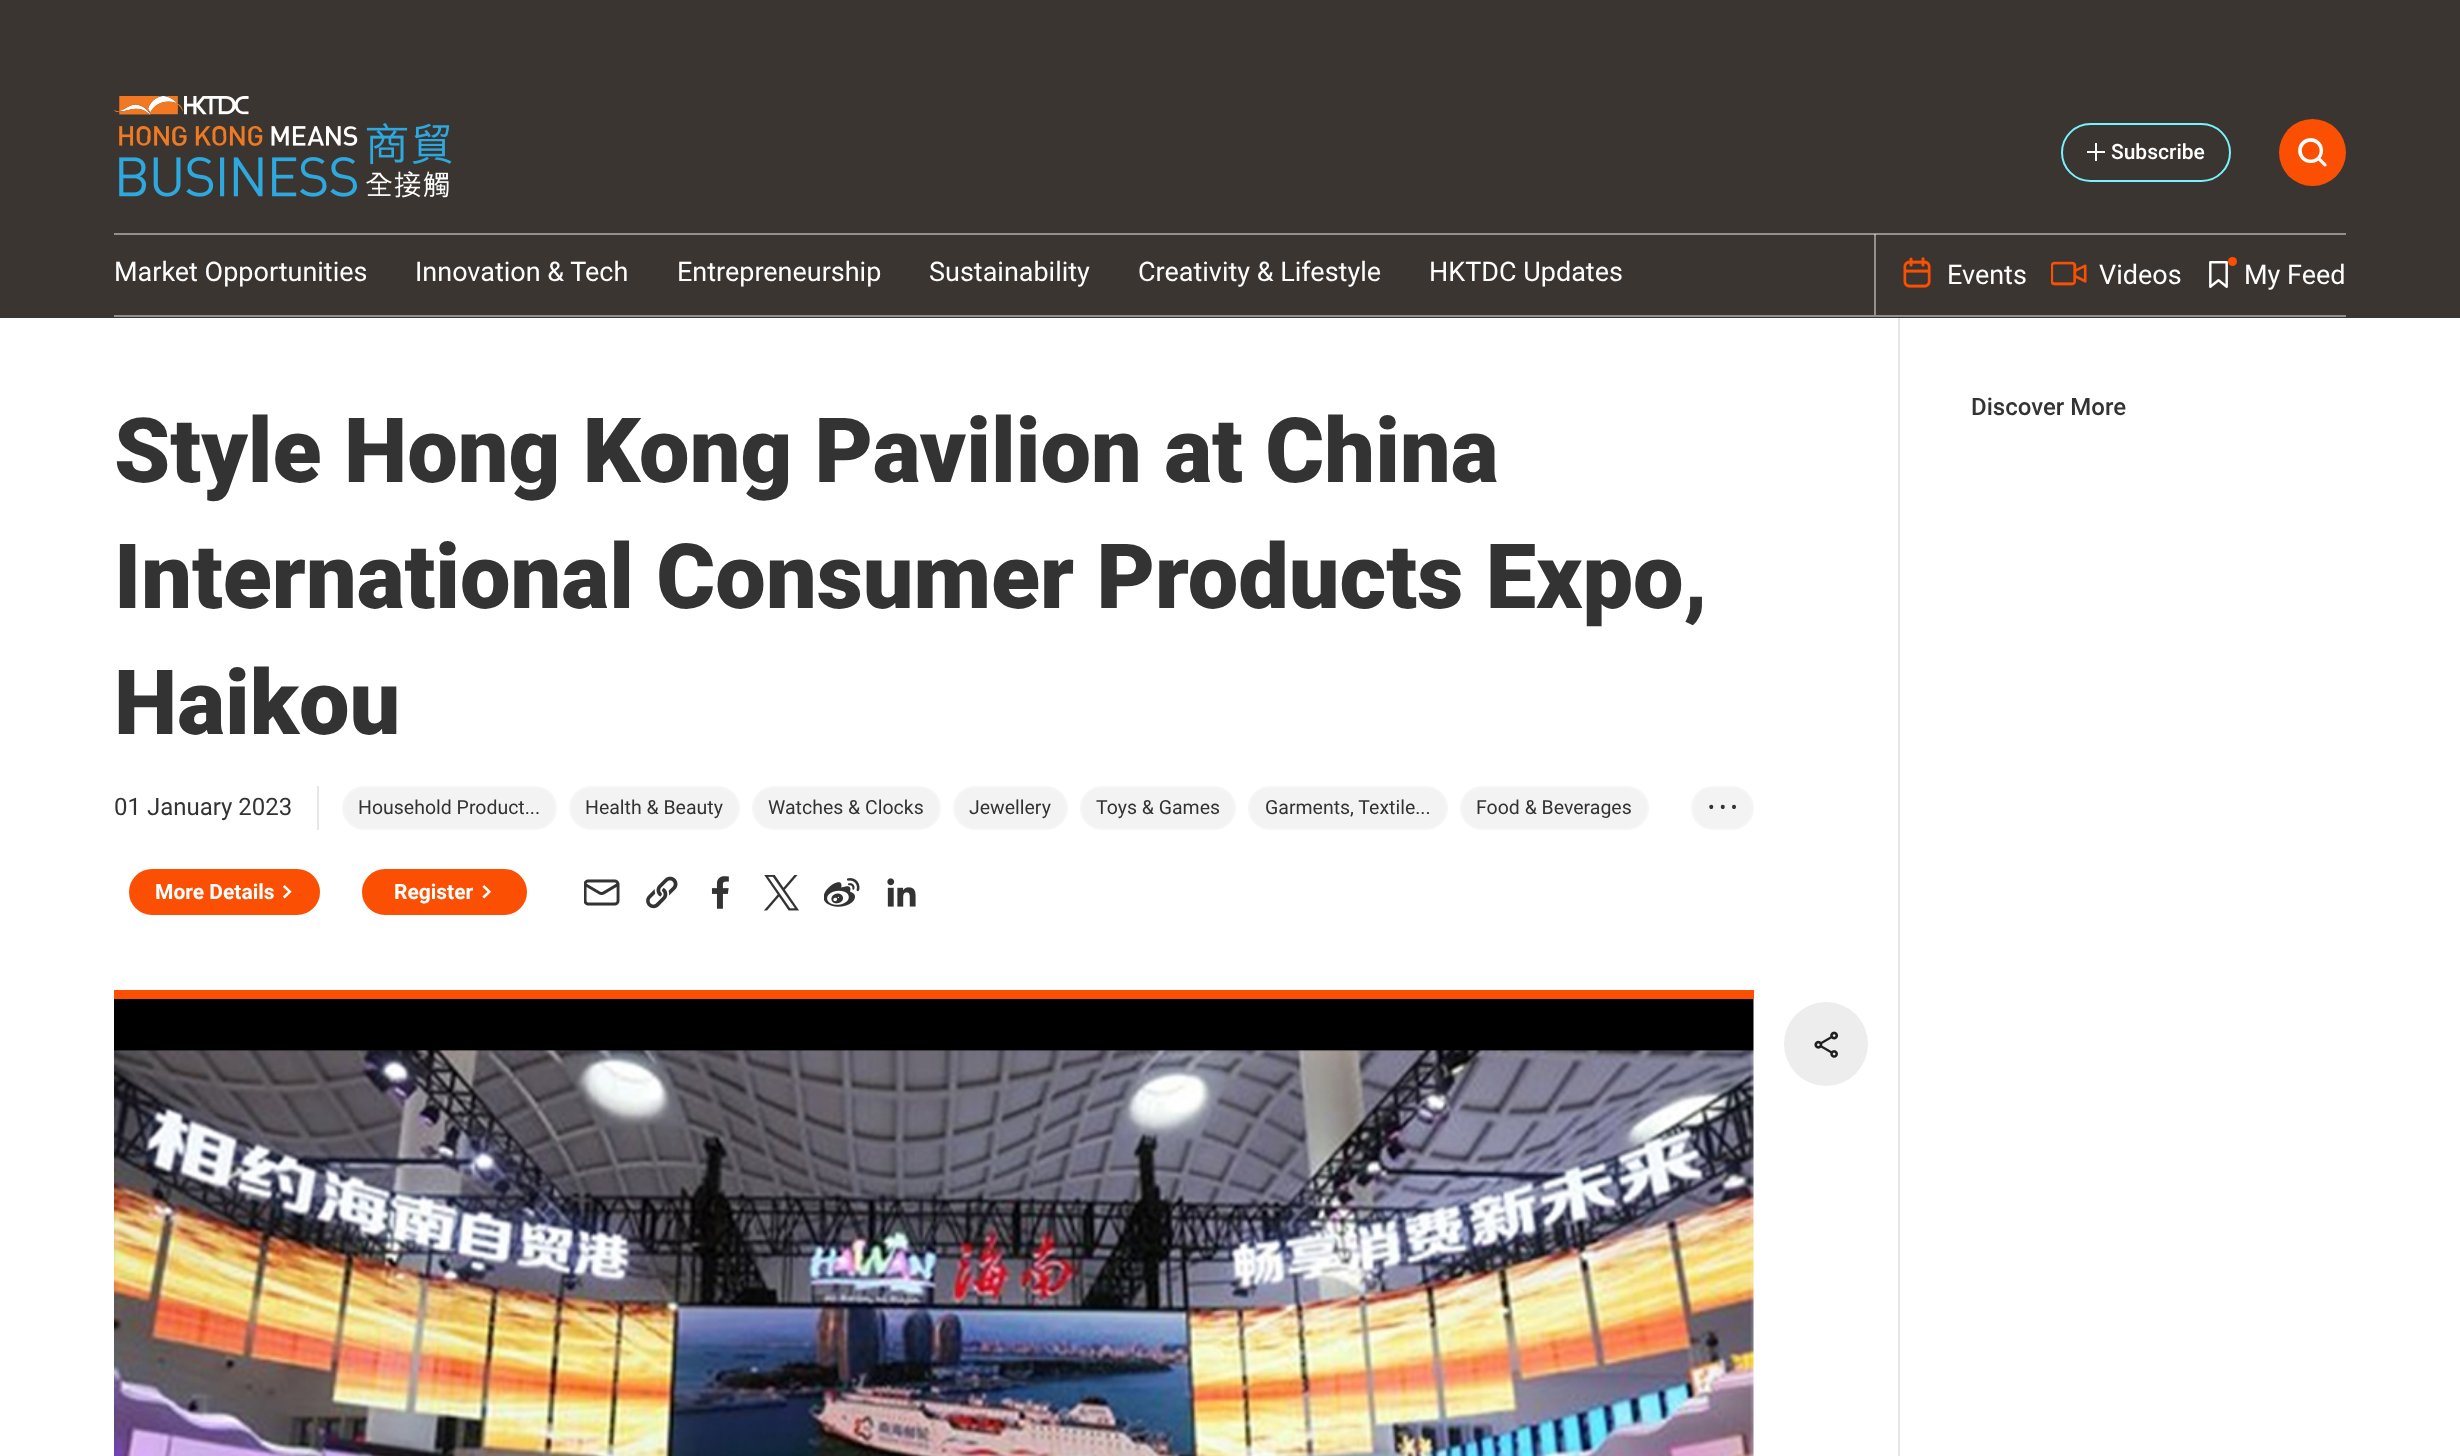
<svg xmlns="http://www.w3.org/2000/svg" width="2460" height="1456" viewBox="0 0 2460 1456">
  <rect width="100%" height="100%" fill="rgb(255,255,255)"/>
  <rect x="0" y="0" width="2460" height="318" fill="rgb(58,53,49)"/>
  <rect x="1874" y="234" width="2" height="81" fill="rgb(147,144,142)"/>
  <image x="114" y="96" width="338" height="102" href="pic1.png"/>
  <rect x="2062" y="124" width="168" height="57" rx="28.5" fill="none" stroke="rgb(120,242,255)" stroke-width="2"/>
  <rect x="2087" y="151" width="18" height="2" fill="rgb(255,255,255)"/>
  <rect x="2095" y="143" width="2" height="18" fill="rgb(255,255,255)"/>
  <text x="2111" y="159" font-family="Roboto" font-size="21" font-weight="500" fill="rgb(255,255,255)">Subscribe</text>
  <circle cx="2312.5" cy="152.5" r="33.5" fill="rgb(251,80,4)"/>
  <image x="2298" y="138" width="29" height="29" href="pic2.png"/>
  <rect x="114" y="233" width="2232" height="2" fill="rgb(147,144,142)"/>
  <rect x="1874" y="234" width="2" height="1" fill="rgb(196,194,193)"/>
  <rect x="114" y="315" width="2232" height="2" fill="rgb(147,144,142)"/>
  <g font-family="Roboto" font-size="27" fill="rgb(255,255,255)">
    <text x="114" y="281">Market Opportunities</text>
    <text x="415" y="281">Innovation &amp; Tech</text>
    <text x="677" y="281">Entrepreneurship</text>
    <text x="929" y="281">Sustainability</text>
    <text x="1138" y="281">Creativity &amp; Lifestyle</text>
    <text x="1429" y="281">HKTDC Updates</text>
  </g>
  <image x="1903" y="257" width="28" height="31" href="pic3.png"/>
  <text x="1947" y="284" font-family="Roboto" font-size="27" fill="rgb(255,255,255)">Events</text>
  <image x="2051" y="261" width="36" height="25" href="pic4.png"/>
  <text x="2099" y="284" font-family="Roboto" font-size="27" fill="rgb(255,255,255)">Videos</text>
  <image x="2209" y="261" width="19" height="27" href="pic5.png"/>
  <circle cx="2232.5" cy="261.5" r="4.5" fill="rgb(251,80,4)"/>
  <text x="2244" y="284" font-family="Roboto" font-size="27" fill="rgb(255,255,255)">My Feed</text>
  <rect x="1898" y="318" width="2" height="1138" fill="rgb(230,230,230)"/>
  <text x="1971" y="415" font-family="Roboto" font-size="24" font-weight="500" fill="rgb(51,51,51)">Discover More</text>
  <g font-family="Roboto" font-size="90" font-weight="900" fill="rgb(51,51,51)">
    <text>
      <tspan x="114" y="482">Style Hong Kong Pavilion at China</tspan>
      <tspan x="114" y="608">International Consumer Products Expo,</tspan>
      <tspan x="114" y="734">Haikou</tspan>
    </text>
  </g>
  <text x="114" y="815" font-family="Roboto" font-size="24" fill="rgb(51,51,51)">01 January 2023</text>
  <rect x="317" y="786" width="2" height="44" fill="rgb(230,230,230)"/>
  <rect x="342" y="786" width="215" height="44" rx="22" fill="rgb(243,243,243)"/>
  <rect x="343" y="787" width="213" height="42" rx="21" fill="none" stroke="rgba(255,255,255,0.3)" stroke-width="2"/>
  <text x="358" y="814" font-family="Roboto" font-size="19.5" fill="rgb(51,51,51)">Household Product...</text>
  <rect x="569" y="786" width="171" height="44" rx="22" fill="rgb(243,243,243)"/>
  <rect x="570" y="787" width="169" height="42" rx="21" fill="none" stroke="rgba(255,255,255,0.3)" stroke-width="2"/>
  <text x="585" y="814" font-family="Roboto" font-size="19.5" fill="rgb(51,51,51)">Health &amp; Beauty</text>
  <rect x="752" y="786" width="189" height="44" rx="22" fill="rgb(243,243,243)"/>
  <rect x="753" y="787" width="187" height="42" rx="21" fill="none" stroke="rgba(255,255,255,0.3)" stroke-width="2"/>
  <text x="768" y="814" font-family="Roboto" font-size="19.5" fill="rgb(51,51,51)">Watches &amp; Clocks</text>
  <rect x="953" y="786" width="115" height="44" rx="22" fill="rgb(243,243,243)"/>
  <rect x="954" y="787" width="113" height="42" rx="21" fill="none" stroke="rgba(255,255,255,0.3)" stroke-width="2"/>
  <text x="969" y="814" font-family="Roboto" font-size="19.5" fill="rgb(51,51,51)">Jewellery</text>
  <rect x="1080" y="786" width="156" height="44" rx="22" fill="rgb(243,243,243)"/>
  <rect x="1081" y="787" width="154" height="42" rx="21" fill="none" stroke="rgba(255,255,255,0.3)" stroke-width="2"/>
  <text x="1096" y="814" font-family="Roboto" font-size="19.5" fill="rgb(51,51,51)">Toys &amp; Games</text>
  <rect x="1248" y="786" width="200" height="44" rx="22" fill="rgb(243,243,243)"/>
  <rect x="1249" y="787" width="198" height="42" rx="21" fill="none" stroke="rgba(255,255,255,0.3)" stroke-width="2"/>
  <text x="1265" y="814" font-family="Roboto" font-size="19.5" fill="rgb(51,51,51)">Garments, Textile...</text>
  <rect x="1460" y="786" width="189" height="44" rx="22" fill="rgb(243,243,243)"/>
  <rect x="1461" y="787" width="187" height="42" rx="21" fill="none" stroke="rgba(255,255,255,0.3)" stroke-width="2"/>
  <text x="1476" y="814" font-family="Roboto" font-size="19.5" fill="rgb(51,51,51)">Food &amp; Beverages</text>
  <rect x="1691" y="786" width="63" height="44" rx="22" fill="rgb(243,243,243)"/>
  <rect x="1692" y="787" width="61" height="42" rx="21" fill="none" stroke="rgba(255,255,255,0.3)" stroke-width="2"/>
  <text x="1708" y="814" font-family="Roboto" font-size="19.5" fill="rgb(51,51,51)">• • •</text>
  <rect x="130" y="870" width="189" height="44" rx="22" fill="rgb(251,80,4)" stroke="rgb(251,80,4)" stroke-width="2"/>
  <text x="155" y="899" font-family="Roboto" font-size="21" font-weight="bold" fill="rgb(255,255,255)">More Details</text>
  <image x="283" y="885" width="9" height="14" href="pic6.png"/>
  <rect x="363" y="870" width="163" height="44" rx="22" fill="rgb(251,80,4)" stroke="rgb(251,80,4)" stroke-width="2"/>
  <text x="394" y="899" font-family="Roboto" font-size="21" font-weight="bold" fill="rgb(255,255,255)">Register</text>
  <image x="482" y="885" width="9" height="14" href="pic7.png"/>
  <image x="584" y="879" width="36" height="27" href="pic8.png"/>
  <image x="646" y="876" width="32" height="33" href="pic9.png"/>
  <image x="711" y="876" width="18" height="33" href="pic10.png"/>
  <image x="764" y="875" width="35" height="36" href="pic11.png"/>
  <image x="824" y="878" width="36" height="29" href="pic12.png"/>
  <image x="887" y="878" width="29" height="29" href="pic13.png"/>
  <rect x="114" y="990" width="1640" height="9" fill="rgb(251,80,4)"/>
  <image x="114" y="999" width="1640" height="457" href="pic14.png"/>
  <circle cx="1826" cy="1044" r="42" fill="rgb(237,237,237)"/>
  <image x="1814" y="1031" width="25" height="27" href="pic15.png"/>
</svg>
